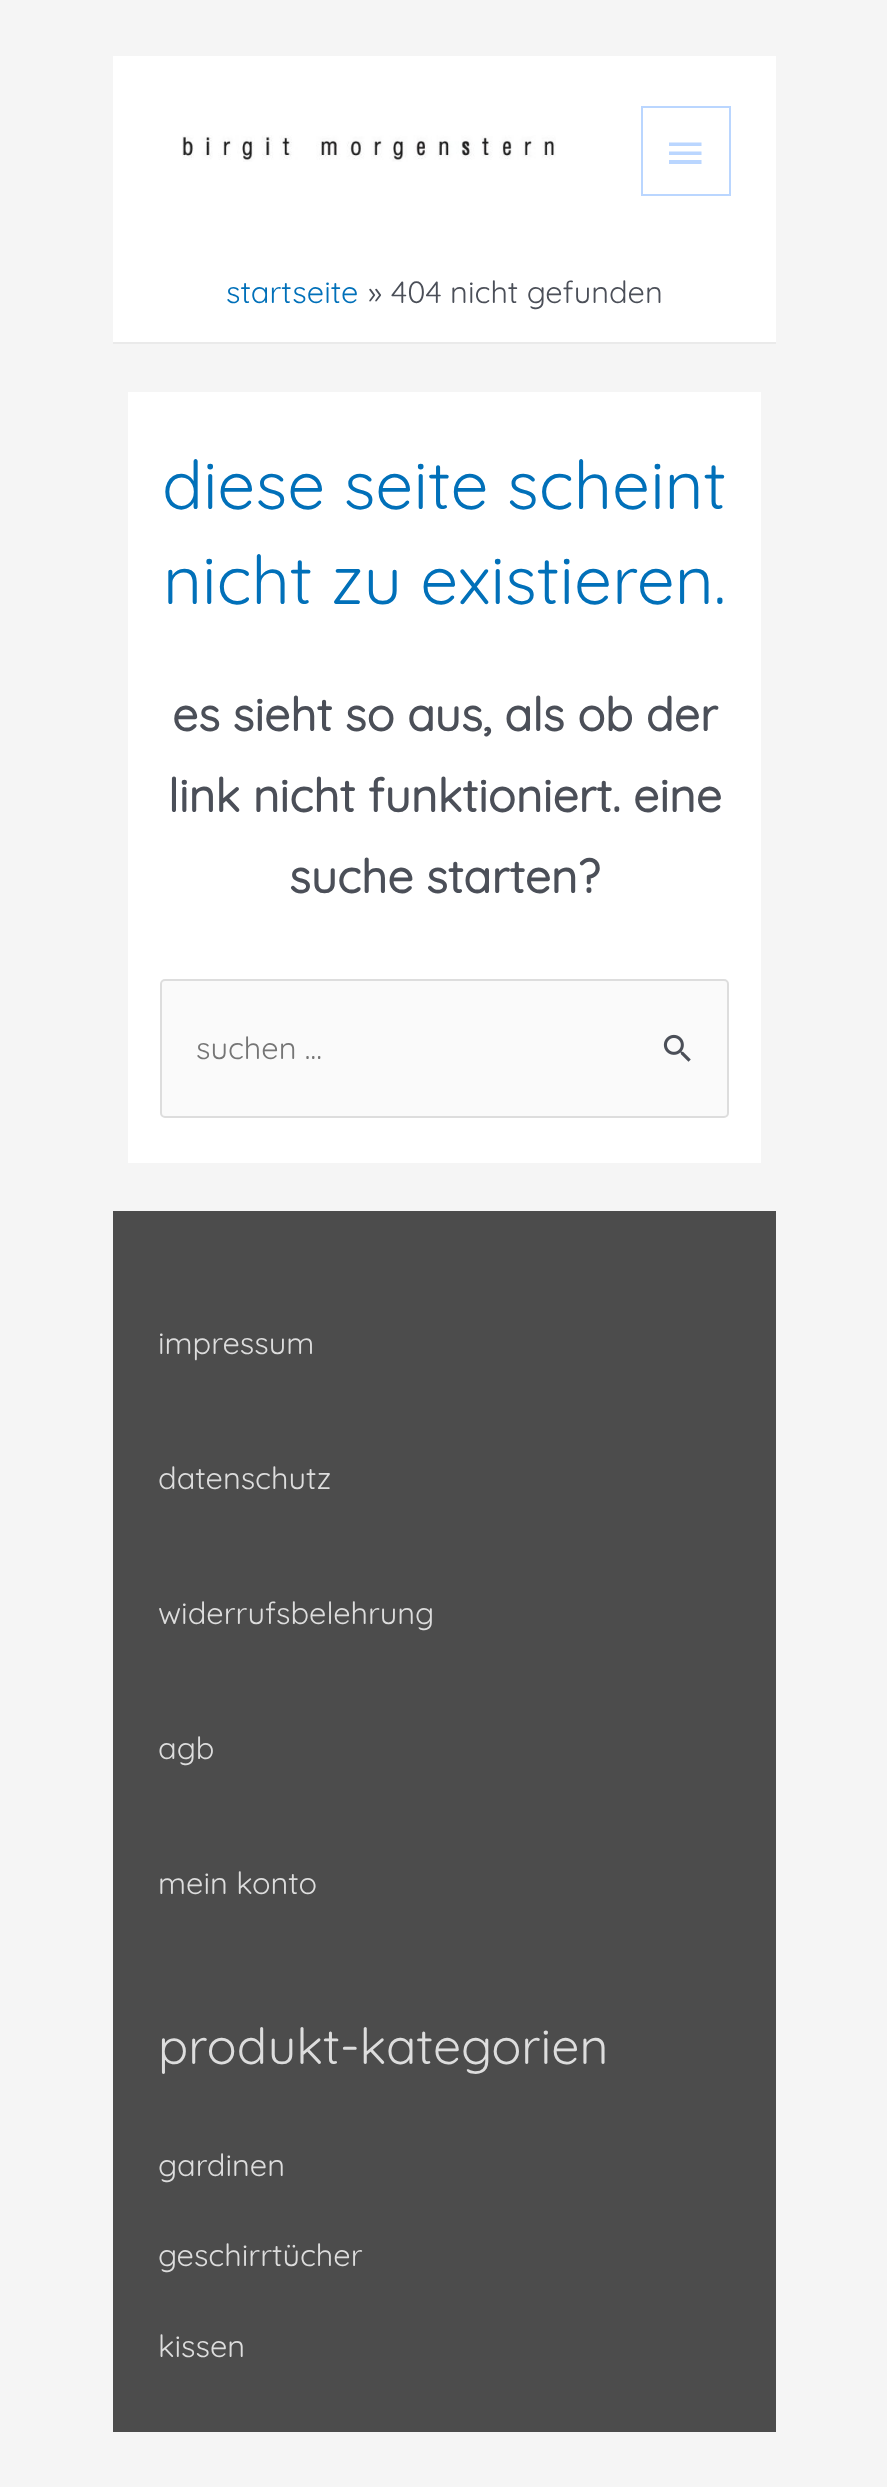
<svg xmlns="http://www.w3.org/2000/svg" width="887" height="2487" viewBox="0 0 887 2487">
  <rect width="100%" height="100%" fill="rgb(245,245,245)"/>
  <rect x="113" y="56" width="663" height="286" fill="rgb(255,255,255)"/>
  <image x="182" y="135" width="374" height="27" href="pic1.png"/>
  <rect x="642" y="107" width="88" height="88" fill="none" stroke="rgb(186,214,255)" stroke-width="2"/>
  <path d="M669 142.5H701.5V146H669ZM669 155V151.5H701.5V155ZM669 164V160H701.5V164Z" fill="rgb(186,214,255)"/>
  <rect x="113" y="342" width="663" height="2" fill="rgb(234,234,234)"/>
  <text x="226" y="303" font-family="Quicksand" font-size="30.75" font-weight="300" fill="rgb(1,112,185)">startseite</text>
  <g font-family="Quicksand" font-size="30.75" font-weight="300" fill="rgb(75,79,88)">
    <text x="368" y="303">»</text>
    <text x="391" y="303">404 nicht gefunden</text>
  </g>
  <rect x="128" y="392" width="633" height="771" fill="rgb(255,255,255)"/>
  <g font-family="Quicksand" font-size="67.5" font-weight="300" fill="rgb(1,112,185)">
    <text x="162" y="509">diese seite scheint</text>
    <text x="163" y="604">nicht zu existieren.</text>
  </g>
  <g font-family="Quicksand" font-size="46.25" font-weight="bold" fill="rgb(75,79,88)">
    <text x="172" y="731">es sieht so aus, als ob der</text>
    <text x="168" y="812">link nicht funktioniert. eine</text>
    <text x="289" y="893">suche starten?</text>
  </g>
  <rect x="161" y="980" width="567" height="137" rx="4" fill="rgb(250,250,250)" stroke="rgb(221,221,221)" stroke-width="2"/>
  <text x="196" y="1059" font-family="Quicksand" font-size="30.75" font-weight="300" fill="rgb(117,117,117)">suchen …</text>
  <image x="663" y="1034" width="28" height="28" href="pic2.png"/>
  <rect x="113" y="1211" width="663" height="1221" fill="rgb(76,76,76)"/>
  <g font-family="Quicksand" font-size="30.75" font-weight="300" fill="rgb(221,221,221)">
    <text x="158" y="1354">impressum</text>
    <text x="158" y="1489">datenschutz</text>
    <text x="158" y="1624">widerrufsbelehrung</text>
    <text x="158" y="1759">agb</text>
    <text x="158" y="1894">mein konto</text>
  </g>
  <text x="158" y="2064" font-family="Quicksand" font-size="50" font-weight="300" fill="rgb(221,221,221)">produkt-kategorien</text>
  <g font-family="Quicksand" font-size="30.75" font-weight="300" fill="rgb(221,221,221)">
    <text x="158" y="2176">gardinen</text>
    <text x="158" y="2266">geschirrtücher</text>
    <text x="158" y="2357">kissen</text>
  </g>
</svg>
